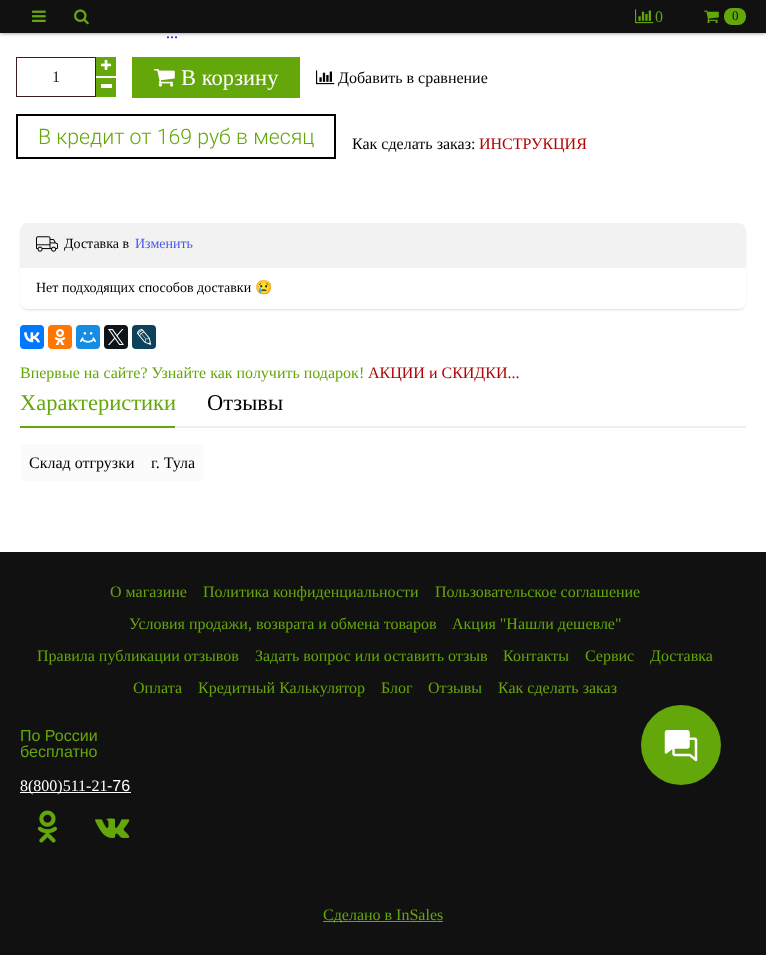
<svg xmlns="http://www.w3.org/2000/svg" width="766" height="955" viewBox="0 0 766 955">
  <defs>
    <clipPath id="clip1"><path d="M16 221H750V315H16ZM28 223H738C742.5 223 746 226.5 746 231V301C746 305.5 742.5 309 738 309H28C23.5 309 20 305.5 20 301V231C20 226.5 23.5 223 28 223Z" clip-rule="evenodd"/></clipPath>
    <clipPath id="clip2"><path d="M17 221H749V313H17ZM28 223H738C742.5 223 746 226.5 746 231V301C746 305.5 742.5 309 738 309H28C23.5 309 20 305.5 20 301V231C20 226.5 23.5 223 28 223Z" clip-rule="evenodd"/></clipPath>
  </defs>
  <rect width="100%" height="100%" fill="rgb(255,255,255)"/>
  <rect x="0" y="0" width="766" height="33" fill="rgba(0,0,0,0.5)" filter="blur(2px)"/>
  <rect x="0" y="0" width="766" height="33" fill="rgb(17,17,17)"/>
  <image x="32" y="10" width="14" height="12" href="pic1.png"/>
  <image x="74" y="9" width="15" height="16" href="pic2.png"/>
  <image x="635" y="9" width="19" height="15" href="pic3.png"/>
  <text x="655" y="22" font-family="Liberation Serif" font-size="16" fill="rgb(100,167,10)">0</text>
  <image x="704" y="10" width="15" height="14" href="pic4.png"/>
  <rect x="724" y="8" width="22" height="17" rx="8" fill="rgb(100,167,10)"/>
  <text x="732" y="20" font-family="Liberation Serif" font-size="13" fill="rgb(17,17,17)">0</text>
  <text x="166" y="38" font-family="Liberation Serif" font-size="16" fill="rgb(0,0,238)">...</text>
  <rect x="16.5" y="57.5" width="79" height="39" fill="none" stroke="rgb(59,29,29)"/>
  <text x="52" y="82" font-family="Liberation Serif" font-size="16" fill="rgb(34,34,34)">1</text>
  <rect x="96" y="57" width="20" height="19" fill="rgb(100,167,10)"/>
  <image x="101" y="59" width="11" height="11" href="pic5.png"/>
  <rect x="96" y="78" width="20" height="19" fill="rgb(100,167,10)"/>
  <rect x="101" y="84" width="11" height="4" fill="rgb(255,255,255)"/>
  <rect x="132" y="57" width="168" height="41" fill="rgb(100,167,10)"/>
  <image x="154" y="69" width="21" height="18" href="pic6.png"/>
  <text x="181" y="85" font-family="Liberation Serif" font-size="22.5" fill="rgb(255,255,255)">В корзину</text>
  <image x="316" y="70" width="19" height="15" href="pic7.png"/>
  <text x="338" y="83" font-family="Liberation Serif" font-size="16" fill="rgb(0,0,0)">Добавить в сравнение</text>
  <rect x="17" y="115" width="318" height="43" fill="none" stroke="rgb(0,0,0)" stroke-width="2"/>
  <text x="38" y="144" font-family="Roboto" font-size="21.3" font-weight="300" fill="rgb(100,167,10)">В кредит от 169 руб в месяц</text>
  <text x="352" y="149" font-family="Liberation Serif" font-size="16" fill="rgb(0,0,0)">Как сделать заказ:</text>
  <text x="479" y="149" font-family="Liberation Serif" font-size="16" fill="rgb(174,4,5)">ИНСТРУКЦИЯ</text>
  <g clip-path="url(#clip1)">
    <rect x="20" y="225" width="726" height="86" rx="8" fill="rgba(0,0,0,0.05)" filter="blur(1px)"/>
  </g>
  <g clip-path="url(#clip2)">
    <rect x="20" y="224" width="726" height="86" rx="8" fill="rgba(0,0,0,0.05)" filter="blur(0.5px)"/>
  </g>
  <path d="M28 223H738C742.5 223 746 226.5 746 231V268H20V231C20 226.5 23.5 223 28 223Z" fill="rgb(242,242,242)"/>
  <image x="36" y="236" width="22" height="16" href="pic8.png"/>
  <text x="64" y="248" font-family="Liberation Serif" font-size="14" fill="rgb(0,0,0)">Доставка в</text>
  <text x="135" y="248" font-family="Liberation Serif" font-size="14" fill="rgb(70,87,239)">Изменить</text>
  <text x="36" y="292" font-family="Liberation Serif" font-size="14" fill="rgb(0,0,0)">Нет подходящих способов доставки</text>
  <text x="255" y="292" font-family="Noto Color Emoji" font-size="14" fill="rgb(0,0,0)">😢</text>
  <rect x="20" y="325" width="24" height="24" rx="4" fill="rgb(0,119,255)"/>
  <image x="24" y="332" width="16" height="11" href="pic9.png"/>
  <rect x="48" y="325" width="24" height="24" rx="4" fill="rgb(255,119,0)"/>
  <image x="54" y="329" width="12" height="16" href="pic10.png"/>
  <rect x="76" y="325" width="24" height="24" rx="4" fill="rgb(22,141,226)"/>
  <image x="80" y="332" width="16" height="11" href="pic11.png"/>
  <rect x="104" y="325" width="24" height="24" rx="4" fill="rgb(15,20,25)"/>
  <image x="108" y="329" width="16" height="16" href="pic12.png"/>
  <rect x="132" y="325" width="24" height="24" rx="4" fill="rgb(13,66,90)"/>
  <image x="137" y="329" width="15" height="16" href="pic13.png"/>
  <text x="20" y="378" font-family="Liberation Serif" font-size="16" fill="rgb(100,167,10)">Впервые на сайте? Узнайте как получить подарок!</text>
  <text x="368" y="378" font-family="Liberation Serif" font-size="16" fill="rgb(174,4,5)">АКЦИИ и СКИДКИ...</text>
  <rect x="175" y="426" width="571" height="2" fill="rgb(238,238,238)"/>
  <rect x="20" y="426" width="155" height="2" fill="rgb(100,167,10)"/>
  <text x="20" y="410" font-family="Liberation Serif" font-size="22.5" fill="rgb(100,167,10)">Характеристики</text>
  <text x="207" y="410" font-family="Liberation Serif" font-size="22.5" fill="rgb(0,0,0)">Отзывы</text>
  <rect x="21" y="444" width="183" height="37" fill="rgb(251,251,251)"/>
  <g font-family="Liberation Serif" font-size="16" fill="rgb(0,0,0)">
    <text x="29" y="468">Склад отгрузки</text>
    <text x="151" y="468">г. Тула</text>
  </g>
  <rect x="0" y="552" width="766" height="403" fill="rgb(17,17,17)"/>
  <g font-family="Liberation Serif" font-size="16" fill="rgb(100,167,10)">
    <text x="110" y="597">О магазине</text>
    <text x="203" y="597">Политика конфиденциальности</text>
    <text x="435" y="597">Пользовательское соглашение</text>
    <text x="129" y="629">Условия продажи, возврата и обмена товаров</text>
    <text x="452" y="629">Акция "Нашли дешевле"</text>
    <text x="37" y="661">Правила публикации отзывов</text>
    <text x="255" y="661">Задать вопрос или оставить отзыв</text>
    <text x="503" y="661">Контакты</text>
    <text x="585" y="661">Сервис</text>
    <text x="650" y="661">Доставка</text>
    <text x="133" y="693">Оплата</text>
    <text x="198" y="693">Кредитный Калькулятор</text>
    <text x="381" y="693">Блог</text>
    <text x="428" y="693">Отзывы</text>
    <text x="498" y="693">Как сделать заказ</text>
  </g>
  <g font-family="Liberation Sans" font-size="16" fill="rgb(100,167,10)">
    <text>
      <tspan x="20" y="741">По России</tspan>
      <tspan x="20" y="757">бесплатно</tspan>
    </text>
  </g>
  <rect x="20" y="792" width="111" height="1" fill="rgb(255,255,255)"/>
  <text x="20" y="791" font-family="Liberation Serif" font-size="16" fill="rgb(255,255,255)">8(800)511-21</text>
  <text x="107" y="791" font-family="Liberation Sans" font-size="16" fill="rgb(255,255,255)">-76</text>
  <image x="37" y="810" width="20" height="33" href="pic14.png"/>
  <image x="95" y="818" width="35" height="20" href="pic15.png"/>
  <rect x="323" y="921" width="120" height="1" fill="rgb(100,167,10)"/>
  <text x="323" y="920" font-family="Liberation Serif" font-size="16" fill="rgb(100,167,10)">Сделано в InSales</text>
  <circle cx="681" cy="745" r="40" fill="rgb(100,167,10)"/>
  <image x="664" y="730" width="34" height="32" href="pic16.png"/>
</svg>
